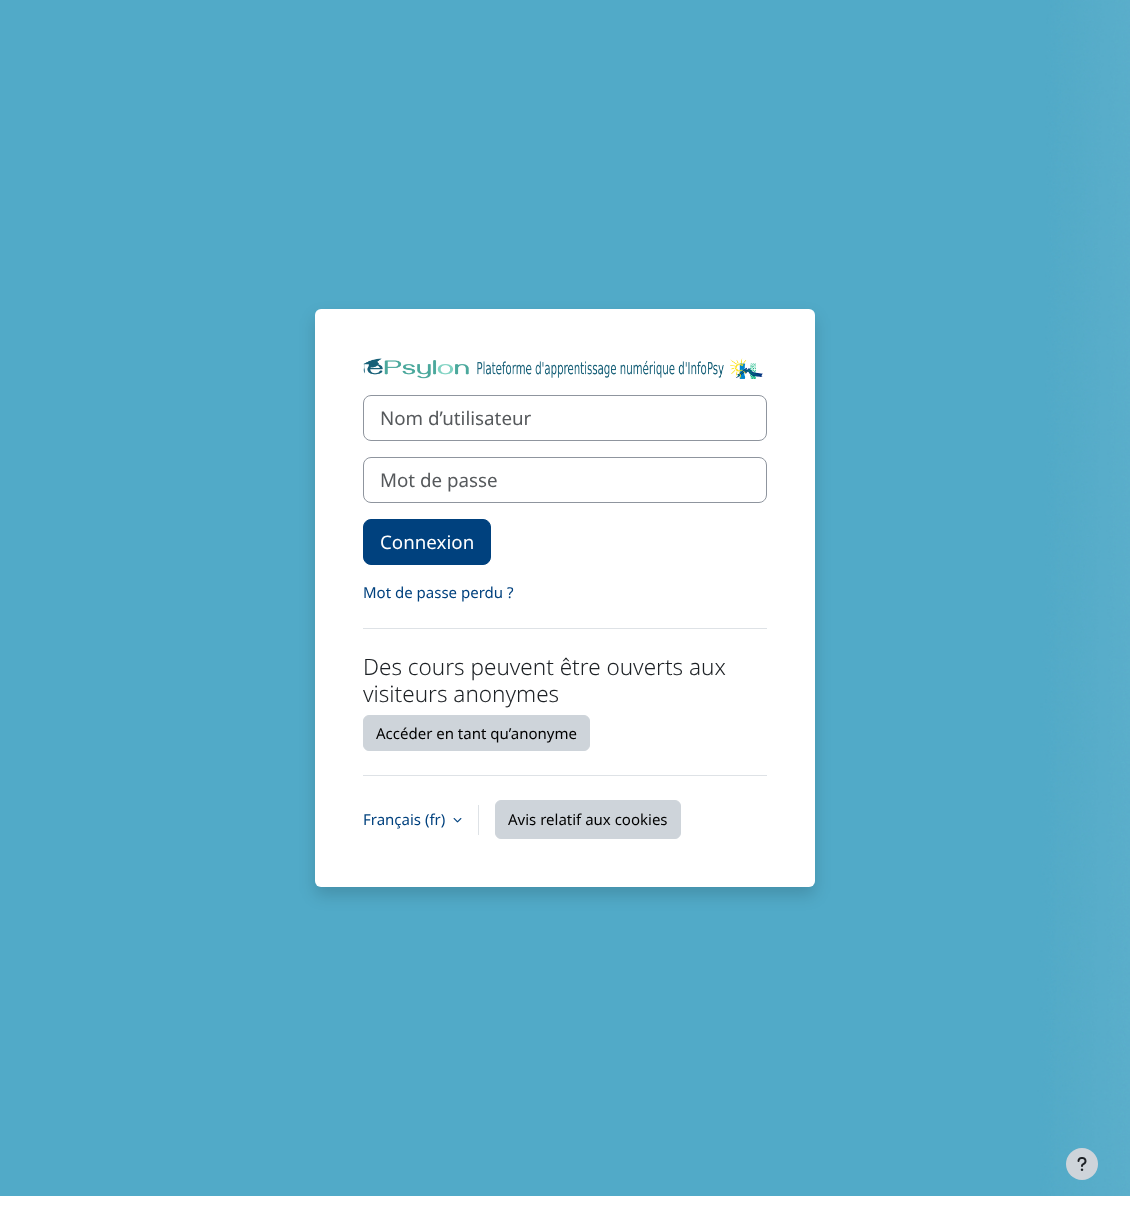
<svg xmlns="http://www.w3.org/2000/svg" width="1130" height="1212" viewBox="0 0 1130 1212">
  <rect width="100%" height="100%" fill="rgb(255,255,255)"/>
  <image x="0" y="0" width="1130" height="1196" href="pic1.png"/>
  <rect x="315" y="317" width="500" height="578" rx="6" fill="rgba(0,0,0,0.15)" filter="blur(8px)"/>
  <rect x="315" y="309" width="500" height="578" rx="6" fill="rgb(255,255,255)"/>
  <image x="363" y="358" width="400" height="21" href="pic2.png"/>
  <rect x="363.5" y="395.5" width="403" height="45" rx="7.5" fill="none" stroke="rgb(143,149,158)"/>
  <text x="380" y="425" font-family="Noto Sans" font-size="18.75" fill="rgb(86,89,92)">Nom d’utilisateur</text>
  <rect x="363.5" y="457.5" width="403" height="45" rx="7.5" fill="none" stroke="rgb(143,149,158)"/>
  <text x="380" y="487" font-family="Noto Sans" font-size="18.75" fill="rgb(86,89,92)">Mot de passe</text>
  <rect x="363.5" y="519.5" width="127" height="45" rx="7.5" fill="rgb(0,65,126)" stroke="rgb(0,65,126)"/>
  <text x="380" y="549" font-family="Noto Sans" font-size="18.75" fill="rgb(255,255,255)">Connexion</text>
  <text x="363" y="598" font-family="Noto Sans" font-size="15" fill="rgb(0,65,126)">Mot de passe perdu ?</text>
  <rect x="363" y="628" width="404" height="1" fill="rgb(222,226,230)"/>
  <g font-family="Noto Sans" font-size="22.5" font-weight="300" fill="rgb(29,33,37)">
    <text>
      <tspan x="363" y="675">Des cours peuvent être ouverts aux</tspan>
      <tspan x="363" y="702">visiteurs anonymes</tspan>
    </text>
  </g>
  <rect x="363.5" y="715.5" width="226" height="35" rx="5.5" fill="rgb(206,212,218)" stroke="rgb(206,212,218)"/>
  <text x="376" y="739" font-family="Noto Sans" font-size="15" fill="rgb(0,0,0)">Accéder en tant qu’anonyme</text>
  <rect x="363" y="775" width="404" height="1" fill="rgb(222,226,230)"/>
  <text x="363" y="825" font-family="Noto Sans" font-size="15" fill="rgb(0,65,126)">Français (fr)</text>
  <image x="453" y="818" width="9" height="5" href="pic3.png"/>
  <rect x="478" y="805" width="1" height="30" fill="rgb(222,226,230)"/>
  <rect x="495.5" y="800.5" width="185" height="38" rx="5.5" fill="rgb(206,212,218)" stroke="rgb(206,212,218)"/>
  <text x="508" y="825" font-family="Noto Sans" font-size="15" fill="rgb(0,0,0)">Avis relatif aux cookies</text>
  <circle cx="1082" cy="1164" r="16" fill="rgb(206,212,218)"/>
  <image x="1077" y="1157" width="10" height="14" href="pic4.png"/>
</svg>
